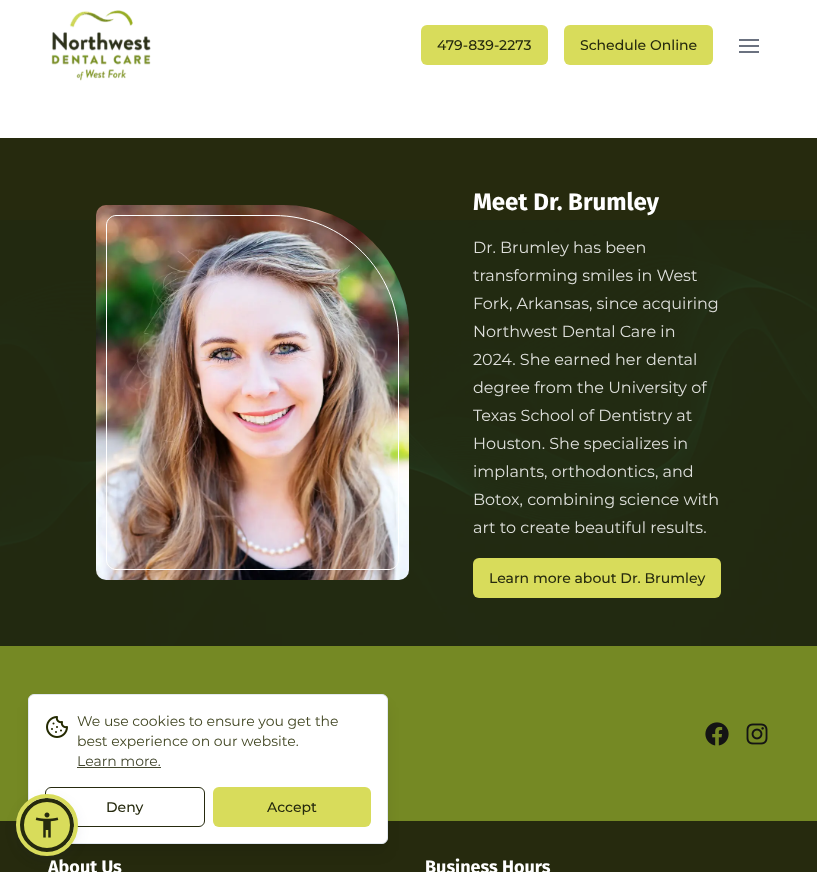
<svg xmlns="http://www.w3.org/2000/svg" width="817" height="872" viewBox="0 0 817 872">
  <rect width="100%" height="100%" fill="rgb(255,255,255)"/>
  <image x="51" y="10" width="100" height="71" href="pic1.png"/>
  <rect x="421" y="25" width="127" height="40" rx="6" fill="rgb(216,220,91)"/>
  <text x="437" y="50" font-family="Montserrat" font-size="14" font-weight="100" fill="rgb(38,42,14)">479-839-2273</text>
  <rect x="564" y="25" width="149" height="40" rx="6" fill="rgb(216,220,91)"/>
  <text x="580" y="50" font-family="Montserrat" font-size="14" font-weight="100" fill="rgb(38,42,14)">Schedule Online</text>
  <rect x="739" y="39" width="20" height="2" fill="rgb(107,114,128)"/>
  <rect x="739" y="45" width="20" height="2" fill="rgb(107,114,128)"/>
  <rect x="739" y="51" width="20" height="2" fill="rgb(107,114,128)"/>
  <rect x="0" y="138" width="817" height="508" fill="rgb(38,42,14)"/>
  <image x="0" y="220" width="817" height="426" href="pic3.png"/>
  <image x="96" y="205" width="313" height="375" href="pic2.png"/>
  <path d="M116 215.5H274C343 215.5 398.5 271 398.5 340V560C398.5 565 394 569.5 389 569.5H116C111 569.5 106.5 565 106.5 560V225C106.5 220 111 215.5 116 215.5Z" fill="none" stroke="rgb(255,255,255)"/>
  <text x="473" y="210" font-family="Fira Sans" font-size="24" font-weight="bold" fill="rgb(255,255,255)">Meet Dr. Brumley</text>
  <g font-family="'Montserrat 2'" font-size="16" font-weight="100" fill="rgb(222,223,219)">
    <text>
      <tspan x="473" y="253">Dr. Brumley has been</tspan>
      <tspan x="473" y="281">transforming smiles in West</tspan>
      <tspan x="473" y="309">Fork, Arkansas, since acquiring</tspan>
      <tspan x="473" y="337">Northwest Dental Care in</tspan>
      <tspan x="473" y="365">2024. She earned her dental</tspan>
      <tspan x="473" y="393">degree from the University of</tspan>
      <tspan x="473" y="421">Texas School of Dentistry at</tspan>
      <tspan x="473" y="449">Houston. She specializes in</tspan>
      <tspan x="473" y="477">implants, orthodontics, and</tspan>
      <tspan x="473" y="505">Botox, combining science with</tspan>
      <tspan x="473" y="533">art to create beautiful results.</tspan>
    </text>
  </g>
  <rect x="473" y="558" width="248" height="40" rx="6" fill="rgb(216,220,91)"/>
  <text x="489" y="583" font-family="Montserrat" font-size="14" font-weight="100" fill="rgb(38,42,14)">Learn more about Dr. Brumley</text>
  <rect x="0" y="821" width="817" height="51" fill="rgb(38,42,14)"/>
  <rect x="0" y="646" width="817" height="175" fill="rgb(117,137,36)"/>
  <rect x="32" y="702" width="352" height="142" rx="2" fill="rgba(0,0,0,0.1)" filter="blur(3px)"/>
  <rect x="31" y="707" width="354" height="144" rx="3" fill="rgba(0,0,0,0.1)" filter="blur(7.5px)"/>
  <rect x="28.5" y="694.5" width="359" height="149" rx="5.5" fill="rgb(255,255,255)" stroke="rgb(226,232,240)"/>
  <image x="46" y="716" width="22" height="22" href="pic4.png"/>
  <g font-family="'Montserrat 2'" font-size="14" font-weight="100" fill="rgb(64,69,33)">
    <text>
      <tspan x="77" y="726">We use cookies to ensure you get the</tspan>
      <tspan x="77" y="746">best experience on our website.</tspan>
    </text>
  </g>
  <text x="77" y="766" font-family="'Montserrat 2'" font-size="14" font-weight="100" fill="rgb(66,70,45)">Learn more.</text>
  <rect x="77" y="767" width="84" height="1" fill="rgb(66,70,45)"/>
  <rect x="45.5" y="787.5" width="159" height="39" rx="5.5" fill="none" stroke="rgb(38,42,14)"/>
  <text x="106" y="812" font-family="Montserrat" font-size="14" font-weight="100" fill="rgb(38,42,14)">Deny</text>
  <rect x="213" y="787" width="158" height="40" rx="6" fill="rgb(216,220,91)"/>
  <text x="267" y="812" font-family="Montserrat" font-size="14" font-weight="100" fill="rgb(38,42,14)">Accept</text>
  <rect x="20" y="800" width="54" height="54" rx="27" fill="rgba(93,100,148,0.2)" filter="blur(2px)"/>
  <rect x="20" y="803" width="54" height="54" rx="27" fill="rgba(37,44,97,0.15)" filter="blur(7.5px)"/>
  <circle cx="47" cy="825" r="25" fill="rgb(216,220,91)" stroke="rgb(38,42,14)" stroke-width="4"/>
  <circle cx="47" cy="825" r="29" fill="none" stroke="rgb(216,220,91)" stroke-width="4"/>
  <image x="35" y="812" width="24" height="26" href="pic5.png"/>
  <image x="705" y="722" width="24" height="24" href="pic6.png"/>
  <image x="746" y="723" width="22" height="22" href="pic7.png"/>
  <g font-family="Fira Sans" font-size="18" font-weight="bold" fill="rgb(255,255,255)">
    <text x="48" y="873">About Us</text>
    <text x="425" y="873">Business Hours</text>
  </g>
</svg>
